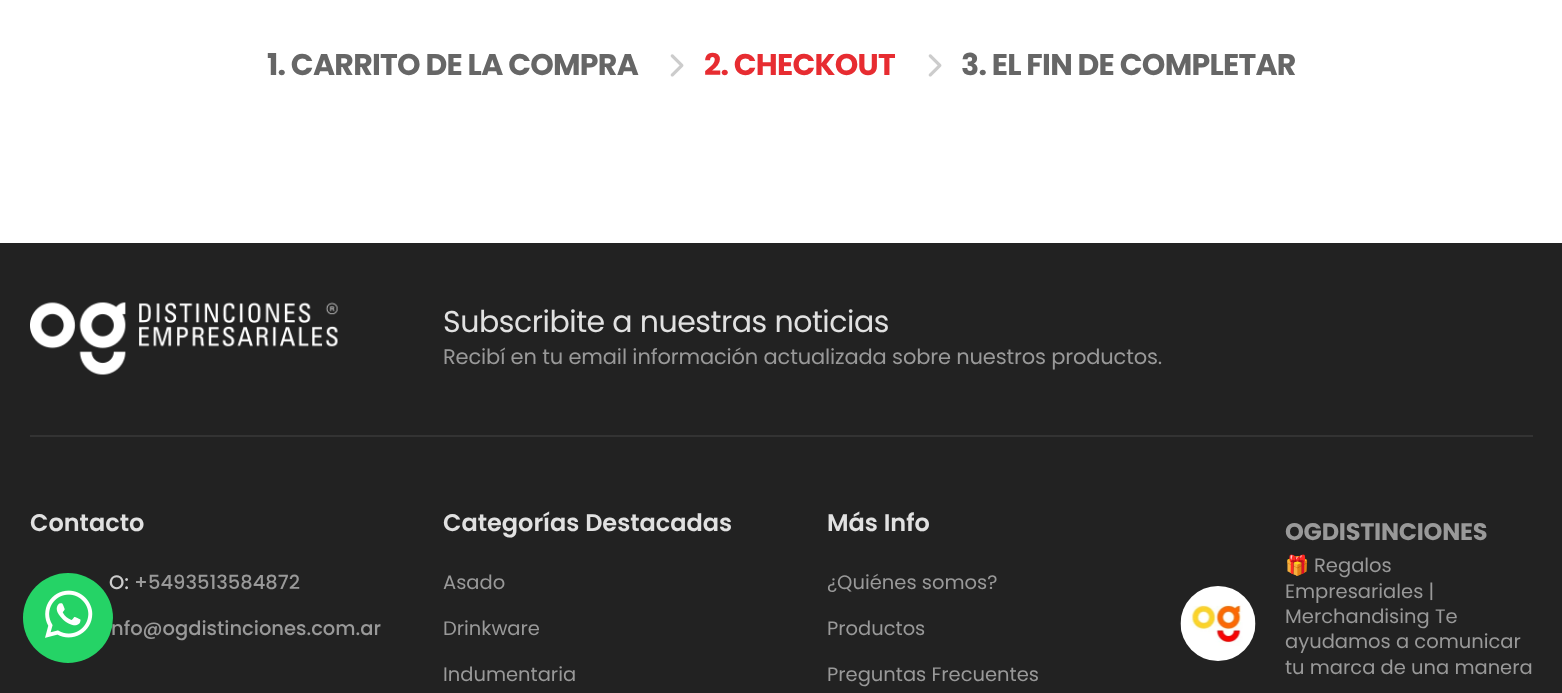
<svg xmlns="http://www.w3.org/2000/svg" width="1562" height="693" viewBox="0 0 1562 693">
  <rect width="100%" height="100%" fill="rgb(255,255,255)"/>
  <text x="267" y="75" font-family="Poppins" font-size="30" font-weight="bold" letter-spacing="-0.75" fill="rgb(102,102,102)">1. CARRITO DE LA COMPRA</text>
  <image x="670" y="54" width="14" height="23" href="pic1.png"/>
  <text x="704" y="75" font-family="Poppins" font-size="30" font-weight="bold" letter-spacing="-0.75" fill="rgb(231,44,49)">2. CHECKOUT</text>
  <image x="928" y="54" width="14" height="23" href="pic1.png"/>
  <text x="961" y="75" font-family="Poppins" font-size="30" font-weight="bold" letter-spacing="-0.75" fill="rgb(102,102,102)">3. EL FIN DE COMPLETAR</text>
  <rect x="0" y="243" width="1562" height="450" fill="rgb(34,34,34)"/>
  <image x="30" y="302" width="308" height="73" href="pic2.png"/>
  <text x="443" y="332" font-family="Poppins" font-size="30" letter-spacing="-0.45" fill="rgb(225,225,225)">Subscribite a nuestras noticias</text>
  <text x="443" y="364" font-family="Poppins" font-size="21" letter-spacing="-0.15" fill="rgb(153,153,153)">Recibí en tu email información actualizada sobre nuestros productos.</text>
  <rect x="30" y="435" width="1503" height="2" fill="rgb(51,51,51)"/>
  <text x="30" y="531" font-family="Poppins" font-size="24" font-weight="600" fill="rgb(225,225,225)">Contacto</text>
  <text x="109" y="589" font-family="Poppins" font-size="19.5" font-weight="500" fill="rgb(204,204,204)">O:</text>
  <g font-family="Poppins" font-size="19.5" font-weight="500" fill="rgb(153,153,153)">
    <text x="134" y="589">+5493513584872</text>
    <text x="111" y="635">nfo@ogdistinciones.com.ar</text>
  </g>
  <circle cx="68" cy="618" r="45" fill="rgb(37,211,102)"/>
  <image x="45" y="590" width="48" height="48" href="pic3.png"/>
  <text x="443" y="531" font-family="Poppins" font-size="24" font-weight="600" fill="rgb(225,225,225)">Categorías Destacadas</text>
  <g font-family="Poppins" font-size="19.5" fill="rgb(153,153,153)">
    <text x="443" y="589">Asado</text>
    <text x="443" y="635">Drinkware</text>
    <text x="443" y="681">Indumentaria</text>
  </g>
  <text x="827" y="531" font-family="Poppins" font-size="24" font-weight="600" fill="rgb(225,225,225)">Más Info</text>
  <g font-family="Poppins" font-size="19.5" fill="rgb(153,153,153)">
    <text x="827" y="589">¿Quiénes somos?</text>
    <text x="827" y="635">Productos</text>
    <text x="827" y="681">Preguntas Frecuentes</text>
  </g>
  <image x="1180" y="586" width="76" height="75" href="pic4.png"/>
  <text x="1285" y="540" font-family="Poppins" font-size="24" font-weight="bold" letter-spacing="-0.25" fill="rgb(153,153,153)">OGDISTINCIONES</text>
  <text x="1285" y="572" font-family="Noto Color Emoji" font-size="19.5" fill="rgb(153,153,153)">🎁</text>
  <g font-family="Poppins" font-size="19.5" fill="rgb(153,153,153)">
    <text x="1314" y="572">Regalos</text>
    <text>
      <tspan x="1285" y="598">Empresariales |</tspan>
      <tspan x="1285" y="623">Merchandising Te</tspan>
      <tspan x="1285" y="648">ayudamos a comunicar</tspan>
      <tspan x="1285" y="674">tu marca de una manera</tspan>
    </text>
  </g>
</svg>
